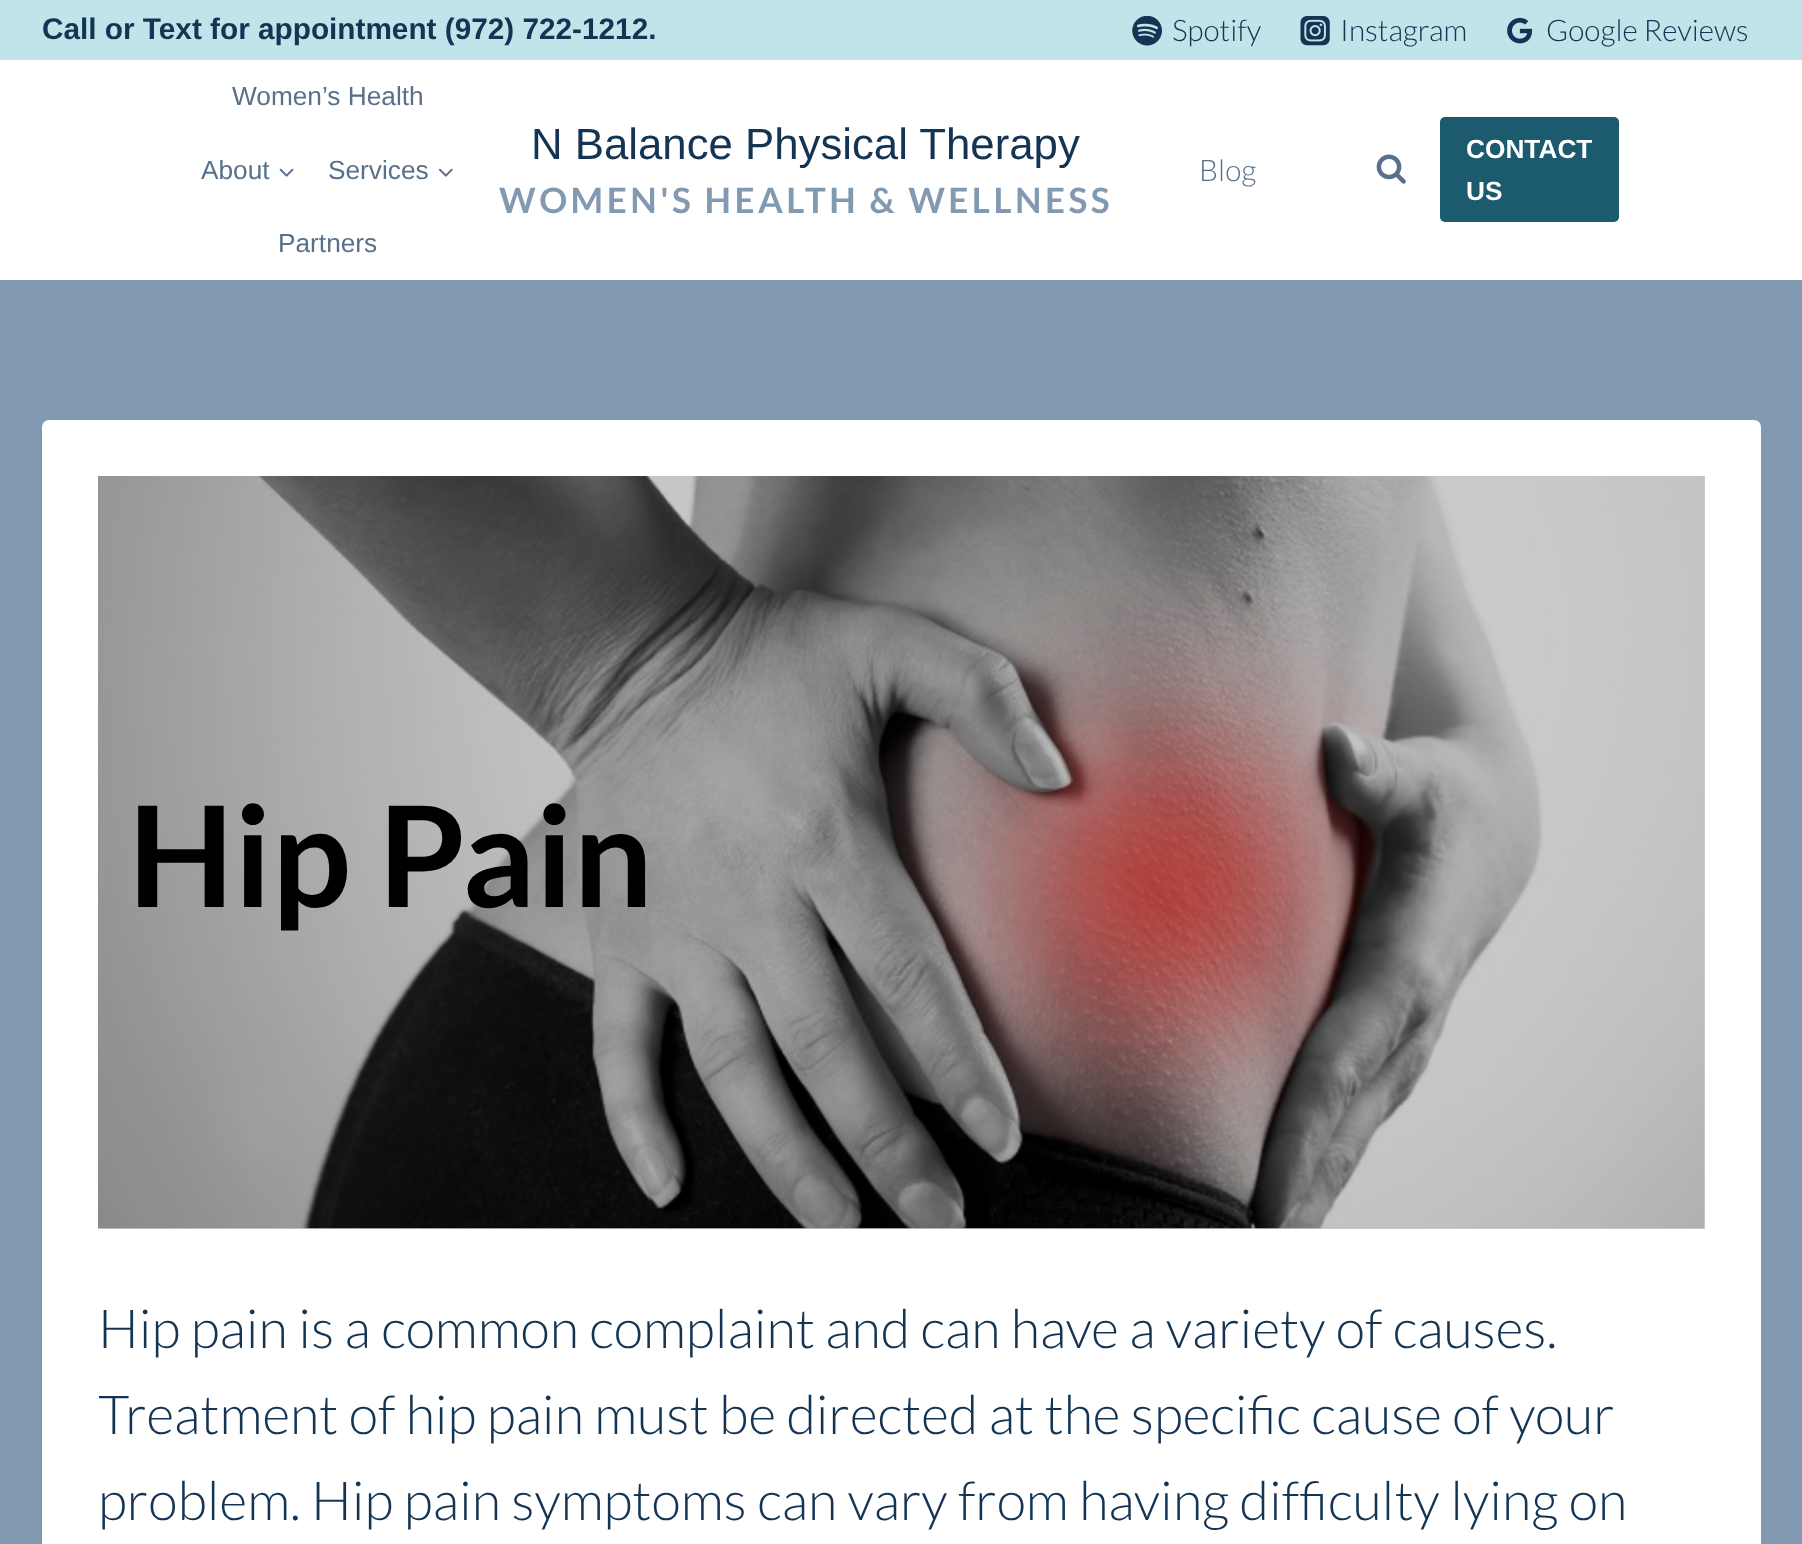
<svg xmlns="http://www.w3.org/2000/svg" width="1802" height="1544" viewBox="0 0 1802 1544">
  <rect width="100%" height="100%" fill="rgb(130,154,177)"/>
  <rect x="0" y="60" width="1802" height="220" fill="rgb(255,255,255)"/>
  <rect x="0" y="0" width="1802" height="60" fill="rgb(191,228,233)"/>
  <text x="42" y="39" font-family="Liberation Sans" font-size="29.75" font-weight="bold" fill="rgb(19,52,83)">Call or Text for appointment (972) 722-1212.</text>
  <image x="1132" y="16" width="30" height="30" href="pic1.png"/>
  <text x="1172" y="41" font-family="Lato" font-size="29.75" font-weight="300" fill="rgb(19,52,83)">Spotify</text>
  <image x="1300" y="16" width="30" height="30" href="pic2.png"/>
  <text x="1340" y="41" font-family="Lato" font-size="29.75" font-weight="300" fill="rgb(19,52,83)">Instagram</text>
  <image x="1507" y="17" width="26" height="27" href="pic3.png"/>
  <text x="1546" y="41" font-family="Lato" font-size="29.75" font-weight="300" fill="rgb(19,52,83)">Google Reviews</text>
  <g font-family="Liberation Sans" font-size="26.25" fill="rgb(88,112,137)">
    <text x="232" y="105">Women’s Health</text>
    <text x="201" y="179">About</text>
  </g>
  <image x="279" y="168" width="15" height="9" href="pic4.png"/>
  <text x="328" y="179" font-family="Liberation Sans" font-size="26.25" fill="rgb(88,112,137)">Services</text>
  <image x="438" y="168" width="15" height="9" href="pic5.png"/>
  <text x="278" y="252" font-family="Liberation Sans" font-size="26.25" fill="rgb(88,112,137)">Partners</text>
  <text x="531" y="159" font-family="Liberation Sans" font-size="43.75" fill="rgb(19,52,83)">N Balance Physical Therapy</text>
  <text x="499" y="213" font-family="Lato" font-size="35" font-weight="bold" letter-spacing="3.5" fill="rgb(130,154,177)">WOMEN'S HEALTH &amp; WELLNESS</text>
  <text x="1199" y="181" font-family="Lato" font-size="29.75" font-weight="300" fill="rgb(88,112,137)">Blog</text>
  <image x="1376" y="154" width="30" height="30" href="pic6.png"/>
  <rect x="1440" y="117" width="179" height="105" rx="5" fill="rgb(28,90,110)"/>
  <g font-family="Liberation Sans" font-size="26.25" font-weight="bold" fill="rgb(255,255,255)">
    <text>
      <tspan x="1466" y="158">CONTACT</tspan>
      <tspan x="1466" y="200">US</tspan>
    </text>
  </g>
  <rect x="42" y="420" width="1719" height="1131" rx="7" fill="rgb(255,255,255)"/>
  <rect x="98" y="476" width="1607" height="753" fill="rgb(204,204,204)"/>
  <image x="98" y="476" width="1607" height="753" href="pic7.png"/>
  <text x="128" y="907" font-family="Lato" font-size="140" font-weight="bold" fill="rgb(0,0,0)">Hip Pain</text>
  <g font-family="Lato" font-size="53.9" font-weight="300" fill="rgb(19,52,83)">
    <text>
      <tspan x="98" y="1348">Hip pain is a common complaint and can have a variety of causes.</tspan>
      <tspan x="98" y="1434">Treatment of hip pain must be directed at the specific cause of your</tspan>
      <tspan x="98" y="1520">problem. Hip pain symptoms can vary from having difficulty lying on</tspan>
    </text>
  </g>
</svg>
